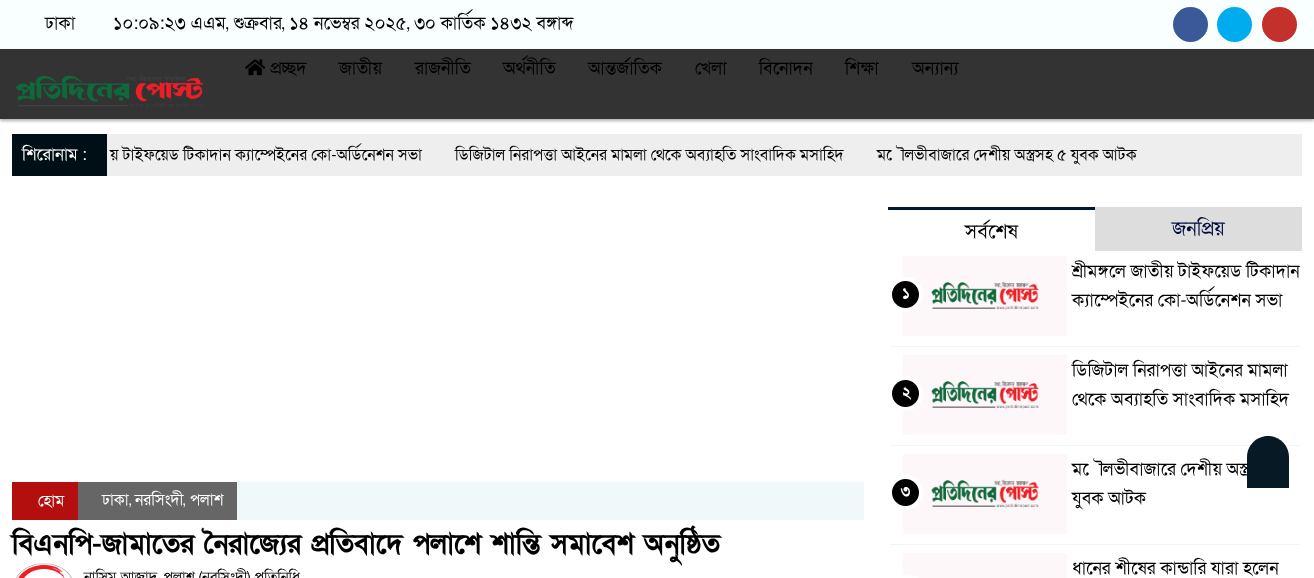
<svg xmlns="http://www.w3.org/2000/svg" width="1314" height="578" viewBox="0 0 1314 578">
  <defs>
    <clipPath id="clip1"><rect x="890" y="256" width="410" height="90"/></clipPath>
    <clipPath id="clip2"><rect x="890" y="355" width="410" height="90"/></clipPath>
    <clipPath id="clip3"><rect x="890" y="454" width="410" height="90"/></clipPath>
  </defs>
  <rect width="100%" height="100%" fill="rgb(255,255,255)"/>
  <rect x="0" y="0" width="1314" height="49" fill="rgb(249,254,255)"/>
  <g font-family="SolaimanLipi" font-size="18" fill="rgb(0,0,0)">
    <text x="45" y="29">ঢাকা</text>
    <text x="113" y="29">১০:০৯:২৩ এএম, শুক্রবার, ১৪ নভেম্বর ২০২৫, ৩০ কার্তিক ১৪৩২ বঙ্গাব্দ</text>
  </g>
  <circle cx="1190.5" cy="24.5" r="17.5" fill="rgb(59,89,152)"/>
  <circle cx="1234.5" cy="24.5" r="17.5" fill="rgb(0,172,238)"/>
  <circle cx="1279.5" cy="24.5" r="17.5" fill="rgb(196,48,43)"/>
  <rect x="0" y="51" width="1314" height="70" fill="rgba(0,0,0,0.3)" filter="blur(1.5px)"/>
  <rect x="0" y="49" width="1314" height="70" fill="rgb(51,51,51)"/>
  <image x="245" y="59" width="21" height="17" href="pic1.png"/>
  <g font-family="SolaimanLipi" font-size="18" fill="rgb(0,0,0)">
    <text x="270" y="74">প্রচ্ছদ</text>
    <text x="339" y="74">জাতীয়</text>
    <text x="415" y="74">রাজনীতি</text>
    <text x="503" y="74">অর্থনীতি</text>
    <text x="588" y="74">আন্তর্জাতিক</text>
    <text x="695" y="74">খেলা</text>
    <text x="759" y="74">বিনোদন</text>
    <text x="845" y="74">শিক্ষা</text>
    <text x="912" y="74">অন্যান্য</text>
  </g>
  <image x="16" y="75" width="187" height="33" href="pic2.png"/>
  <rect x="12" y="134" width="95" height="42" fill="rgb(0,14,21)"/>
  <text x="22" y="160" font-family="SolaimanLipi" font-size="17" fill="rgb(255,255,255)">শিরোনাম :</text>
  <rect x="107" y="134" width="1195" height="42" fill="rgb(238,238,238)"/>
  <g font-family="SolaimanLipi" font-size="16" fill="rgb(0,0,0)">
    <text x="110" y="160">য় টাইফয়েড টিকাদান ক্যাম্পেইনের কো-অর্ডিনেশন সভা</text>
    <text x="455" y="160">ডিজিটাল নিরাপত্তা আইনের মামলা থেকে অব্যাহতি সাংবাদিক মসাহিদ</text>
    <text x="877" y="160">মৌলভীবাজারে দেশীয় অস্ত্রসহ ৫ যুবক আটক</text>
  </g>
  <rect x="237" y="482" width="627" height="38" fill="rgb(240,248,249)"/>
  <rect x="12" y="482" width="66" height="38" fill="rgb(179,15,15)"/>
  <text x="38" y="506" font-family="SolaimanLipi" font-size="16" fill="rgb(255,255,255)">হোম</text>
  <rect x="78" y="482" width="159" height="38" fill="rgb(102,102,102)"/>
  <text x="102" y="505" font-family="SolaimanLipi" font-size="16" fill="rgb(255,255,255)">ঢাকা</text>
  <text x="129" y="505" font-family="SolaimanLipi" font-size="15" fill="rgb(255,255,255)">,</text>
  <text x="135" y="505" font-family="SolaimanLipi" font-size="16" fill="rgb(255,255,255)">নরসিংদী</text>
  <text x="183" y="505" font-family="SolaimanLipi" font-size="15" fill="rgb(255,255,255)">,</text>
  <text x="190" y="505" font-family="SolaimanLipi" font-size="16" fill="rgb(255,255,255)">পলাশ</text>
  <text x="12" y="553" font-family="SolaimanLipi" font-size="28" font-weight="bold" fill="rgb(0,0,0)">বিএনপি-জামাতের নৈরাজ্যের প্রতিবাদে পলাশে শান্তি সমাবেশ অনুষ্ঠিত</text>
  <image x="16" y="563" width="56" height="15" href="pic3.png"/>
  <text x="84" y="582" font-family="SolaimanLipi" font-size="15" fill="rgb(0,0,0)">নাসিম আজাদ, পলাশ (নরসিংদী) প্রতিনিধি</text>
  <rect x="888" y="207" width="207" height="3" fill="rgb(1,25,47)"/>
  <text x="965" y="238" font-family="SolaimanLipi" font-size="20" fill="rgb(0,0,0)">সর্বশেষ</text>
  <rect x="1095" y="207" width="207" height="44" fill="rgb(221,221,221)"/>
  <text x="1172" y="235" font-family="SolaimanLipi" font-size="20" fill="rgb(0,13,57)">জনপ্রিয়</text>
  <rect x="890" y="346" width="410" height="1" fill="rgb(244,244,244)"/>
  <text x="1072" y="277" font-family="SolaimanLipi" font-size="18" fill="rgb(0,0,0)">শ্রীমঙ্গলে জাতীয় টাইফয়েড টিকাদান</text>
  <image x="903" y="256" width="164" height="80" href="pic4.png"/>
  <text x="1072" y="306" font-family="SolaimanLipi" font-size="18" fill="rgb(0,0,0)">ক্যাম্পেইনের কো-অর্ডিনেশন সভা</text>
  <g clip-path="url(#clip1)">
    <circle cx="905.5" cy="294.5" r="15.5" fill="rgb(0,0,0)" stroke="rgb(255,255,255)" stroke-width="4"/>
  </g>
  <text x="902" y="298" font-family="SolaimanLipi" font-size="15" font-weight="bold" fill="rgb(255,255,255)">১</text>
  <rect x="890" y="445" width="410" height="1" fill="rgb(244,244,244)"/>
  <image x="903" y="355" width="164" height="80" href="pic5.png"/>
  <g font-family="SolaimanLipi" font-size="18" fill="rgb(0,0,0)">
    <text>
      <tspan x="1072" y="376">ডিজিটাল নিরাপত্তা আইনের মামলা</tspan>
      <tspan x="1072" y="405">থেকে অব্যাহতি সাংবাদিক মসাহিদ</tspan>
    </text>
  </g>
  <g clip-path="url(#clip2)">
    <circle cx="905.5" cy="393.5" r="15.5" fill="rgb(0,0,0)" stroke="rgb(255,255,255)" stroke-width="4"/>
  </g>
  <text x="902" y="397" font-family="SolaimanLipi" font-size="15" font-weight="bold" fill="rgb(255,255,255)">২</text>
  <rect x="890" y="544" width="410" height="1" fill="rgb(244,244,244)"/>
  <g font-family="SolaimanLipi" font-size="18" fill="rgb(0,0,0)">
    <text>
      <tspan x="1072" y="475">মৌলভীবাজারে দেশীয় অস্ত্রস</tspan>
      <tspan x="1072" y="504">যুবক আটক</tspan>
    </text>
  </g>
  <image x="903" y="454" width="164" height="80" href="pic6.png"/>
  <g clip-path="url(#clip3)">
    <circle cx="905.5" cy="492.5" r="15.5" fill="rgb(0,0,0)" stroke="rgb(255,255,255)" stroke-width="4"/>
  </g>
  <text x="901" y="496" font-family="SolaimanLipi" font-size="15" font-weight="bold" fill="rgb(255,255,255)">৩</text>
  <rect x="903" y="553" width="164" height="25" fill="rgb(254,247,250)"/>
  <text x="1072" y="574" font-family="SolaimanLipi" font-size="18" fill="rgb(0,0,0)">ধানের শীষের কান্ডারি যারা হলেন</text>
  <rect x="890" y="576" width="31" height="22" rx="15.5" fill="none" stroke="rgb(255,255,255)" stroke-width="4"/>
  <path d="M1268 436C1279.5 436 1289 445.5 1289 457V488H1247V457C1247 445.5 1256.5 436 1268 436Z" fill="rgb(6,25,36)"/>
</svg>
